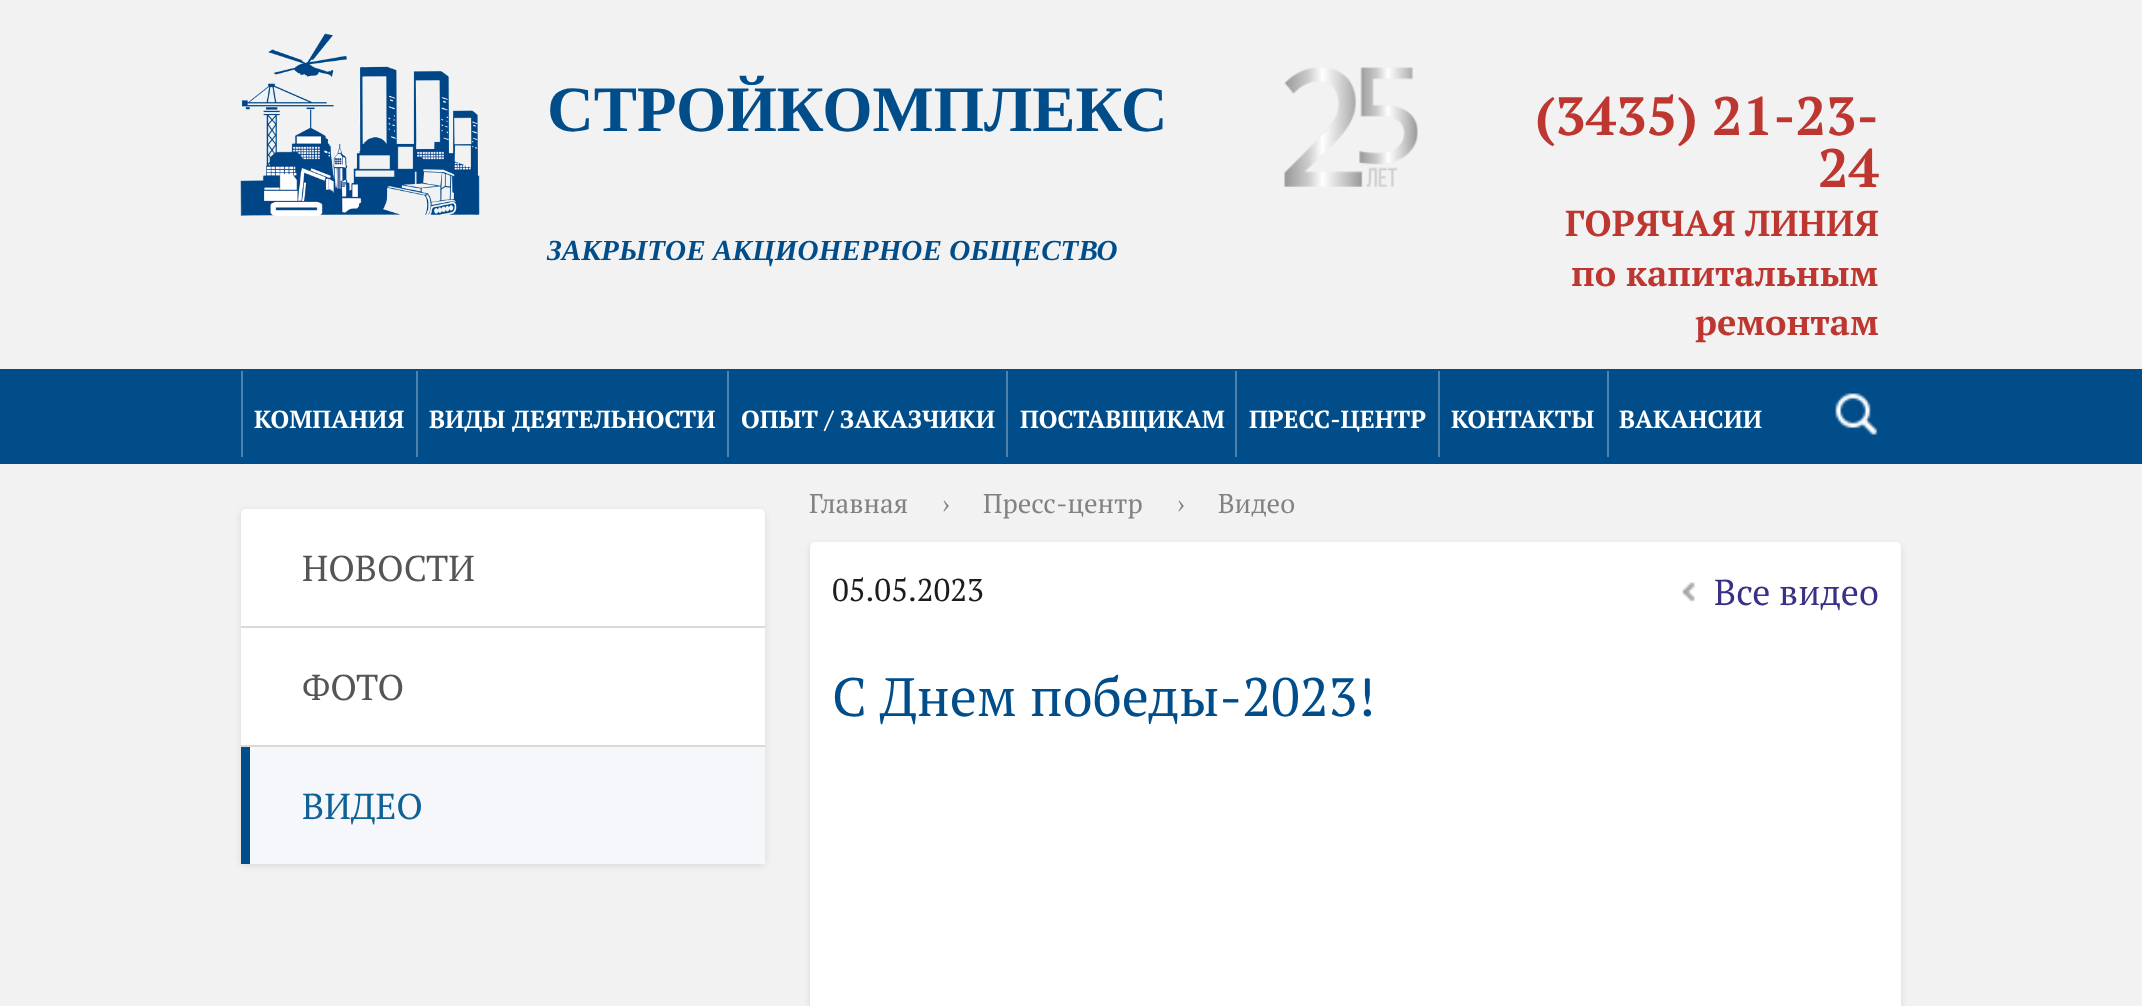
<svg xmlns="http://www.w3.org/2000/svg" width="2142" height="1006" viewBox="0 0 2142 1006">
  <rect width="100%" height="100%" fill="rgb(242,242,242)"/>
  <image x="240" y="33" width="240" height="183" href="pic1.png"/>
  <text x="547" y="131" font-family="Liberation Serif" font-size="64.75" font-weight="bold" fill="rgb(1,77,138)">СТРОЙКОМПЛЕКС</text>
  <text x="547" y="260" font-family="Liberation Serif" font-size="29.2" font-weight="bold" font-style="italic" fill="rgb(1,77,138)">ЗАКРЫТОЕ АКЦИОНЕРНОЕ ОБЩЕСТВО</text>
  <image x="1284" y="67" width="134" height="120" href="pic2.png"/>
  <g font-family="PT Serif" font-size="54" font-weight="bold" fill="rgb(189,54,47)">
    <text x="1535" y="135">(3435) 21-23-</text>
    <text x="1818" y="187">24</text>
  </g>
  <g font-family="PT Serif" font-size="36" font-weight="bold" fill="rgb(189,54,47)">
    <text x="1565" y="236">ГОРЯЧАЯ ЛИНИЯ</text>
    <text x="1571" y="286">по капитальным</text>
    <text x="1695" y="335">ремонтам</text>
  </g>
  <rect x="0" y="369" width="2142" height="95" fill="rgb(1,77,138)"/>
  <rect x="241" y="371" width="2" height="86" fill="rgb(77,130,173)"/>
  <text x="254" y="428" font-family="PT Serif" font-size="24.75" font-weight="bold" fill="rgb(255,255,255)">КОМПАНИЯ</text>
  <rect x="416" y="371" width="2" height="86" fill="rgb(77,130,173)"/>
  <text x="429" y="428" font-family="PT Serif" font-size="24.75" font-weight="bold" fill="rgb(255,255,255)">ВИДЫ ДЕЯТЕЛЬНОСТИ</text>
  <rect x="727" y="371" width="2" height="86" fill="rgb(77,130,173)"/>
  <text x="741" y="428" font-family="PT Serif" font-size="24.75" font-weight="bold" fill="rgb(255,255,255)">ОПЫТ / ЗАКАЗЧИКИ</text>
  <rect x="1006" y="371" width="2" height="86" fill="rgb(77,130,173)"/>
  <text x="1020" y="428" font-family="PT Serif" font-size="24.75" font-weight="bold" fill="rgb(255,255,255)">ПОСТАВЩИКАМ</text>
  <rect x="1235" y="371" width="2" height="86" fill="rgb(77,130,173)"/>
  <text x="1249" y="428" font-family="PT Serif" font-size="24.75" font-weight="bold" fill="rgb(255,255,255)">ПРЕСС-ЦЕНТР</text>
  <rect x="1438" y="371" width="2" height="86" fill="rgb(77,130,173)"/>
  <text x="1451" y="428" font-family="PT Serif" font-size="24.75" font-weight="bold" fill="rgb(255,255,255)">КОНТАКТЫ</text>
  <rect x="1607" y="371" width="2" height="86" fill="rgb(77,130,173)"/>
  <text x="1619" y="428" font-family="PT Serif" font-size="24.75" font-weight="bold" fill="rgb(255,255,255)">ВАКАНСИИ</text>
  <image x="1835" y="393" width="43" height="42" href="pic3.png"/>
  <rect x="241" y="511" width="524" height="355" rx="5" fill="rgba(0,0,0,0.1)" filter="blur(3.5px)"/>
  <rect x="241" y="509" width="524" height="355" rx="5" fill="rgb(255,255,255)"/>
  <rect x="241" y="626" width="524" height="2" fill="rgb(217,217,217)"/>
  <text x="302" y="581" font-family="PT Serif" font-size="36" fill="rgb(85,85,85)">НОВОСТИ</text>
  <rect x="241" y="745" width="524" height="2" fill="rgb(217,217,217)"/>
  <text x="302" y="700" font-family="PT Serif" font-size="36" fill="rgb(85,85,85)">ФОТО</text>
  <rect x="250" y="747" width="515" height="117" fill="rgb(245,247,250)"/>
  <rect x="241" y="747" width="9" height="117" fill="rgb(1,77,138)"/>
  <text x="302" y="819" font-family="PT Serif" font-size="36" fill="rgb(16,97,150)">ВИДЕО</text>
  <g font-family="PT Serif" font-size="27" fill="rgb(130,130,130)">
    <text x="809" y="513">Главная</text>
    <text x="942" y="513">›</text>
    <text x="983" y="513">Пресс-центр</text>
    <text x="1177" y="513">›</text>
    <text x="1218" y="513">Видео</text>
  </g>
  <rect x="810" y="545" width="1091" height="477" rx="5" fill="rgba(0,0,0,0.1)" filter="blur(3.5px)"/>
  <rect x="810" y="542" width="1091" height="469" rx="5" fill="rgb(255,255,255)"/>
  <text x="832" y="601" font-family="PT Serif" font-size="31.5" fill="rgb(28,28,28)">05.05.2023</text>
  <image x="1682" y="582" width="13" height="20" href="pic4.png"/>
  <text x="1714" y="605" font-family="PT Serif" font-size="36" fill="rgb(57,49,133)">Все видео</text>
  <text x="832" y="716" font-family="PT Serif" font-size="54" fill="rgb(1,77,138)">С Днем победы-2023!</text>
</svg>
